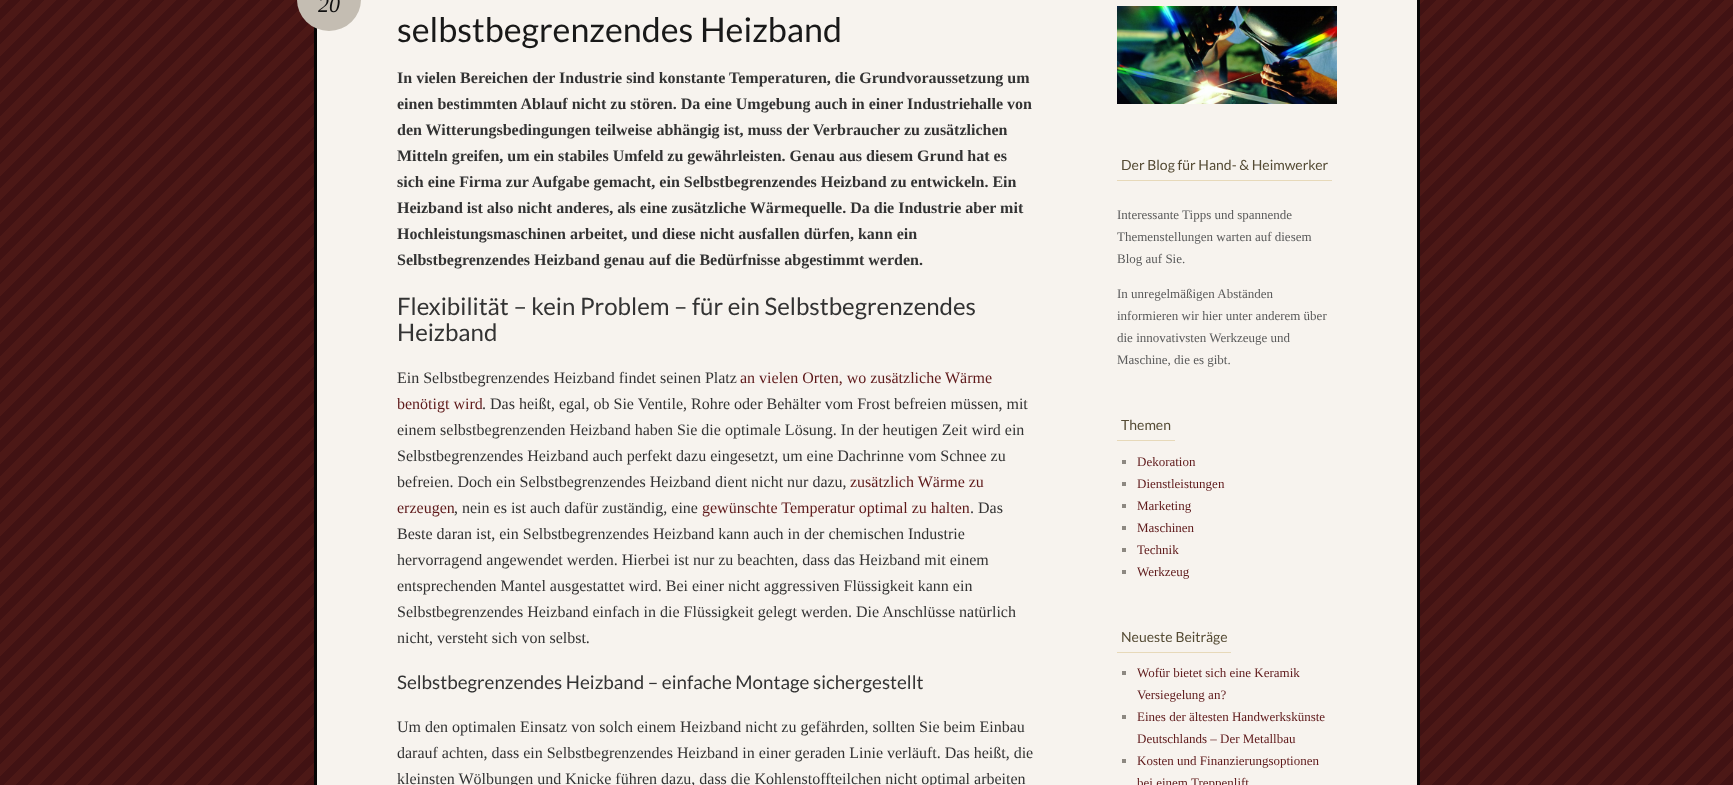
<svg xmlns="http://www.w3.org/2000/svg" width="1733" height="785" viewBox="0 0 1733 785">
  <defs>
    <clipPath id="clip1"><rect x="1117" y="0" width="220" height="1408"/></clipPath>
  </defs>
  <rect width="100%" height="100%" fill="rgb(255,255,255)"/>
  <image x="0" y="0" width="1733" height="785" href="pic1.png"/>
  <rect x="315.5" y="-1.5" width="1103" height="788" fill="rgb(247,243,238)" stroke="rgb(5,5,5)" stroke-width="3"/>
  <rect x="297" y="-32" width="64" height="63" rx="32" fill="rgb(196,189,178)"/>
  <text x="318" y="12" font-family="Liberation Serif" font-size="22" font-style="italic" fill="rgb(17,17,17)">20</text>
  <text x="397" y="42" font-family="Lato" font-size="34" fill="rgb(25,25,25)">selbstbegrenzendes Heizband</text>
  <g font-family="Liberation Serif" font-size="16" font-weight="bold" fill="rgb(51,51,51)">
    <text>
      <tspan x="397" y="83">In vielen Bereichen der Industrie sind konstante Temperaturen, die Grundvoraussetzung um</tspan>
      <tspan x="397" y="109">einen bestimmten Ablauf nicht zu stören. Da eine Umgebung auch in einer Industriehalle von</tspan>
      <tspan x="397" y="135">den Witterungsbedingungen teilweise abhängig ist, muss der Verbraucher zu zusätzlichen</tspan>
      <tspan x="397" y="161">Mitteln greifen, um ein stabiles Umfeld zu gewährleisten. Genau aus diesem Grund hat es</tspan>
      <tspan x="397" y="187">sich eine Firma zur Aufgabe gemacht, ein Selbstbegrenzendes Heizband zu entwickeln. Ein</tspan>
      <tspan x="397" y="213">Heizband ist also nicht anderes, als eine zusätzliche Wärmequelle. Da die Industrie aber mit</tspan>
      <tspan x="397" y="239">Hochleistungsmaschinen arbeitet, und diese nicht ausfallen dürfen, kann ein</tspan>
      <tspan x="397" y="265">Selbstbegrenzendes Heizband genau auf die Bedürfnisse abgestimmt werden.</tspan>
    </text>
  </g>
  <g font-family="Lato" font-size="24" fill="rgb(51,51,51)">
    <text>
      <tspan x="397" y="315">Flexibilität – kein Problem – für ein Selbstbegrenzendes</tspan>
      <tspan x="397" y="341">Heizband</tspan>
    </text>
  </g>
  <text x="397" y="383" font-family="Liberation Serif" font-size="16" fill="rgb(51,51,51)">Ein Selbstbegrenzendes Heizband findet seinen Platz</text>
  <g font-family="Liberation Serif" font-size="16" fill="rgb(94,25,26)">
    <text x="740" y="383">an vielen Orten, wo zusätzliche Wärme</text>
    <text x="397" y="409">benötigt wird</text>
  </g>
  <g font-family="Liberation Serif" font-size="16" fill="rgb(51,51,51)">
    <text x="482" y="409">. Das heißt, egal, ob Sie Ventile, Rohre oder Behälter vom Frost befreien müssen, mit</text>
    <text>
      <tspan x="397" y="435">einem selbstbegrenzenden Heizband haben Sie die optimale Lösung. In der heutigen Zeit wird ein</tspan>
      <tspan x="397" y="461">Selbstbegrenzendes Heizband auch perfekt dazu eingesetzt, um eine Dachrinne vom Schnee zu</tspan>
      <tspan x="397" y="487">befreien. Doch ein Selbstbegrenzendes Heizband dient nicht nur dazu,</tspan>
    </text>
  </g>
  <g font-family="Liberation Serif" font-size="16" fill="rgb(94,25,26)">
    <text x="850" y="487">zusätzlich Wärme zu</text>
    <text x="397" y="513">erzeugen</text>
  </g>
  <text x="454" y="513" font-family="Liberation Serif" font-size="16" fill="rgb(51,51,51)">, nein es ist auch dafür zuständig, eine</text>
  <text x="702" y="513" font-family="Liberation Serif" font-size="16" fill="rgb(94,25,26)">gewünschte Temperatur optimal zu halten</text>
  <g font-family="Liberation Serif" font-size="16" fill="rgb(51,51,51)">
    <text x="970" y="513">. Das</text>
    <text>
      <tspan x="397" y="539">Beste daran ist, ein Selbstbegrenzendes Heizband kann auch in der chemischen Industrie</tspan>
      <tspan x="397" y="565">hervorragend angewendet werden. Hierbei ist nur zu beachten, dass das Heizband mit einem</tspan>
      <tspan x="397" y="591">entsprechenden Mantel ausgestattet wird. Bei einer nicht aggressiven Flüssigkeit kann ein</tspan>
      <tspan x="397" y="617">Selbstbegrenzendes Heizband einfach in die Flüssigkeit gelegt werden. Die Anschlüsse natürlich</tspan>
      <tspan x="397" y="643">nicht, versteht sich von selbst.</tspan>
    </text>
  </g>
  <text x="397" y="689" font-family="Lato" font-size="18.75" fill="rgb(51,51,51)">Selbstbegrenzendes Heizband – einfache Montage sichergestellt</text>
  <g font-family="Liberation Serif" font-size="16" fill="rgb(51,51,51)">
    <text>
      <tspan x="397" y="732">Um den optimalen Einsatz von solch einem Heizband nicht zu gefährden, sollten Sie beim Einbau</tspan>
      <tspan x="397" y="758">darauf achten, dass ein Selbstbegrenzendes Heizband in einer geraden Linie verläuft. Das heißt, die</tspan>
      <tspan x="397" y="784">kleinsten Wölbungen und Knicke führen dazu, dass die Kohlenstoffteilchen nicht optimal arbeiten</tspan>
    </text>
  </g>
  <image x="1117" y="6" width="220" height="98" href="pic2.png"/>
  <rect x="1117" y="180" width="215" height="1" fill="rgb(231,217,185)"/>
  <text x="1121" y="170" font-family="Lato" font-size="14" fill="rgb(85,75,52)">Der Blog für Hand- &amp; Heimwerker</text>
  <text x="1117" y="219" font-family="Liberation Serif" font-size="13" fill="rgb(91,91,91)">Interessante Tipps und spannende</text>
  <g clip-path="url(#clip1)">
    <text x="1117" y="241" font-family="Liberation Serif" font-size="13" fill="rgb(91,91,91)">Themenstellungen warten auf diesem</text>
  </g>
  <g font-family="Liberation Serif" font-size="13" fill="rgb(91,91,91)">
    <text x="1117" y="263">Blog auf Sie.</text>
    <text>
      <tspan x="1117" y="298">In unregelmäßigen Abständen</tspan>
      <tspan x="1117" y="320">informieren wir hier unter anderem über</tspan>
      <tspan x="1117" y="342">die innovativsten Werkzeuge und</tspan>
      <tspan x="1117" y="364">Maschine, die es gibt.</tspan>
    </text>
  </g>
  <rect x="1117" y="440" width="58" height="1" fill="rgb(231,217,185)"/>
  <text x="1121" y="430" font-family="Lato" font-size="14" fill="rgb(85,75,52)">Themen</text>
  <rect x="1122" y="460" width="4" height="4" fill="rgb(141,136,129)"/>
  <text x="1137" y="466" font-family="Liberation Serif" font-size="13" fill="rgb(94,25,26)">Dekoration</text>
  <rect x="1122" y="482" width="4" height="4" fill="rgb(141,136,129)"/>
  <text x="1137" y="488" font-family="Liberation Serif" font-size="13" fill="rgb(94,25,26)">Dienstleistungen</text>
  <rect x="1122" y="504" width="4" height="4" fill="rgb(141,136,129)"/>
  <text x="1137" y="510" font-family="Liberation Serif" font-size="13" fill="rgb(94,25,26)">Marketing</text>
  <rect x="1122" y="526" width="4" height="4" fill="rgb(141,136,129)"/>
  <text x="1137" y="532" font-family="Liberation Serif" font-size="13" fill="rgb(94,25,26)">Maschinen</text>
  <rect x="1122" y="548" width="4" height="4" fill="rgb(141,136,129)"/>
  <text x="1137" y="554" font-family="Liberation Serif" font-size="13" fill="rgb(94,25,26)">Technik</text>
  <rect x="1122" y="570" width="4" height="4" fill="rgb(141,136,129)"/>
  <text x="1137" y="576" font-family="Liberation Serif" font-size="13" fill="rgb(94,25,26)">Werkzeug</text>
  <rect x="1117" y="652" width="114" height="1" fill="rgb(231,217,185)"/>
  <text x="1121" y="642" font-family="Lato" font-size="14" fill="rgb(85,75,52)">Neueste Beiträge</text>
  <rect x="1122" y="671" width="4" height="4" fill="rgb(141,136,129)"/>
  <g font-family="Liberation Serif" font-size="13" fill="rgb(94,25,26)">
    <text>
      <tspan x="1137" y="677">Wofür bietet sich eine Keramik</tspan>
      <tspan x="1137" y="699">Versiegelung an?</tspan>
    </text>
  </g>
  <rect x="1122" y="715" width="4" height="4" fill="rgb(141,136,129)"/>
  <g font-family="Liberation Serif" font-size="13" fill="rgb(94,25,26)">
    <text>
      <tspan x="1137" y="721">Eines der ältesten Handwerkskünste</tspan>
      <tspan x="1137" y="743">Deutschlands – Der Metallbau</tspan>
    </text>
  </g>
  <rect x="1122" y="759" width="4" height="4" fill="rgb(141,136,129)"/>
  <g font-family="Liberation Serif" font-size="13" fill="rgb(94,25,26)">
    <text>
      <tspan x="1137" y="765">Kosten und Finanzierungsoptionen</tspan>
      <tspan x="1137" y="787">bei einem Treppenlift</tspan>
    </text>
  </g>
</svg>
